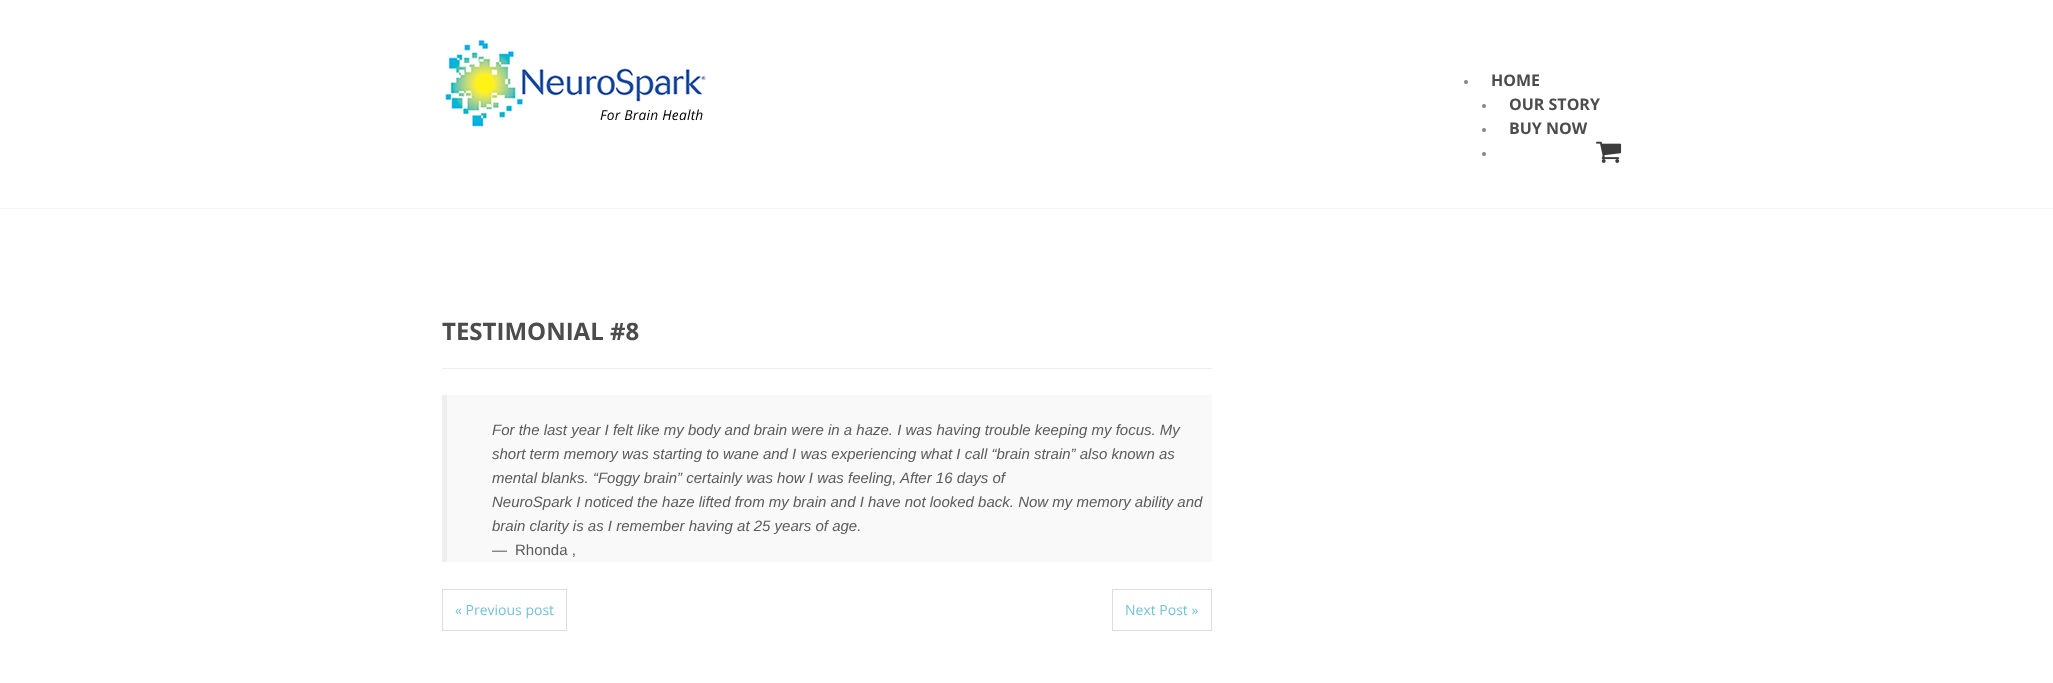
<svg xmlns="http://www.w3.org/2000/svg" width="2053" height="683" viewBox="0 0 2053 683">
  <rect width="100%" height="100%" fill="rgb(255,255,255)"/>
  <rect x="0" y="208" width="2053" height="1" fill="rgb(245,245,245)"/>
  <image x="445" y="39" width="261" height="88" href="pic1.png"/>
  <circle cx="1466" cy="82" r="2" fill="rgb(134,133,133)"/>
  <text x="1491" y="86" font-family="Open Sans" font-size="16" font-weight="bold" fill="rgb(76,76,76)">HOME</text>
  <circle cx="1484" cy="106" r="2" fill="rgb(134,133,133)"/>
  <text x="1509" y="110" font-family="Open Sans" font-size="16" font-weight="bold" fill="rgb(76,76,76)">OUR STORY</text>
  <circle cx="1484" cy="130" r="2" fill="rgb(134,133,133)"/>
  <text x="1509" y="134" font-family="Open Sans" font-size="16" font-weight="bold" fill="rgb(76,76,76)">BUY NOW</text>
  <circle cx="1484" cy="154" r="2" fill="rgb(134,133,133)"/>
  <image x="1596" y="141" width="26" height="22" href="pic2.png"/>
  <rect x="442" y="368" width="770" height="1" fill="rgb(238,238,238)"/>
  <text x="442" y="340" font-family="Open Sans" font-size="24" font-weight="bold" fill="rgb(76,76,76)">TESTIMONIAL #8</text>
  <rect x="447" y="395" width="765" height="167" fill="rgb(249,249,249)"/>
  <rect x="442" y="395" width="5" height="167" fill="rgb(238,238,238)"/>
  <g font-family="Liberation Sans" font-size="15" font-style="italic" fill="rgb(92,90,90)">
    <text>
      <tspan x="492" y="435">For the last year I felt like my body and brain were in a haze. I was having trouble keeping my focus. My</tspan>
      <tspan x="492" y="459">short term memory was starting to wane and I was experiencing what I call “brain strain” also known as</tspan>
      <tspan x="492" y="483">mental blanks. “Foggy brain” certainly was how I was feeling, After 16 days of</tspan>
      <tspan x="492" y="507">NeuroSpark I noticed the haze lifted from my brain and I have not looked back. Now my memory ability and</tspan>
      <tspan x="492" y="531">brain clarity is as I remember having at 25 years of age.</tspan>
    </text>
  </g>
  <g font-family="Liberation Sans" font-size="15" fill="rgb(92,90,90)">
    <text x="492" y="555">—</text>
    <text x="515" y="555">Rhonda ,</text>
  </g>
  <rect x="442.5" y="589.5" width="124" height="41" fill="none" stroke="rgb(221,221,221)"/>
  <text x="455" y="615" font-family="Open Sans" font-size="14" fill="rgb(118,195,215)">« Previous post</text>
  <rect x="1112.5" y="589.5" width="99" height="41" fill="none" stroke="rgb(221,221,221)"/>
  <text x="1125" y="615" font-family="Open Sans" font-size="14" fill="rgb(118,195,215)">Next Post »</text>
</svg>
